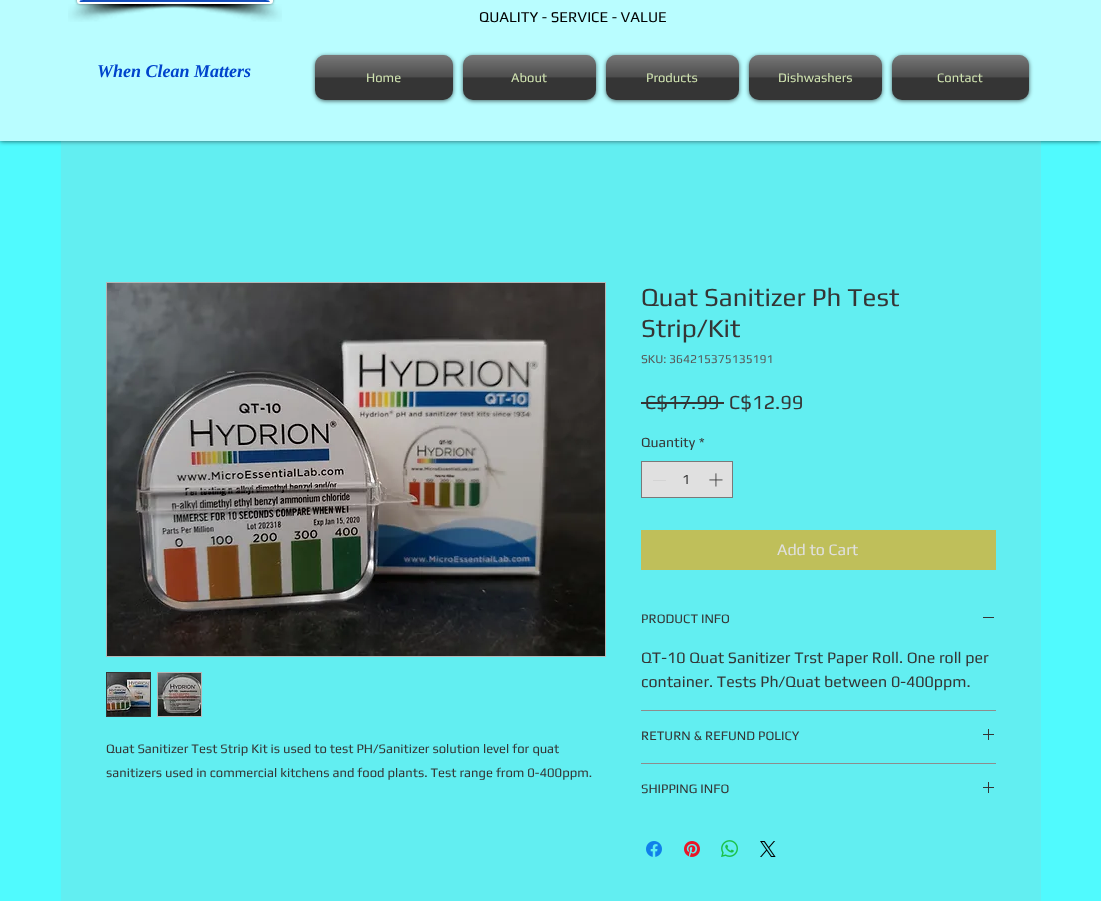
<svg xmlns="http://www.w3.org/2000/svg" width="1101" height="901" viewBox="0 0 1101 901">
  <rect width="100%" height="100%" fill="rgb(80,250,254)"/>
  <rect x="0" y="-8" width="1101" height="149" fill="rgba(0,0,0,0.7)" filter="blur(2.5px)"/>
  <rect x="0" y="0" width="1101" height="141" fill="rgb(185,253,255)"/>
  <rect x="77" y="-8" width="196" height="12" rx="3" fill="rgba(0,0,0,0.5)" filter="blur(1.5px)"/>
  <rect x="78" y="-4" width="194" height="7" rx="2" fill="rgb(255,255,255)" stroke="rgb(255,255,255)" stroke-width="2"/>
  <image x="79" y="0" width="191" height="2" href="pic1.png"/>
  <image x="68" y="4" width="144" height="18" href="pic2.png"/>
  <image x="153" y="4" width="129" height="18" href="pic3.png"/>
  <text x="479" y="22" font-family="Play" font-size="15" fill="rgb(0,0,0)">QUALITY - SERVICE - VALUE</text>
  <text x="97" y="77" font-family="Liberation Serif" font-size="18" font-weight="bold" font-style="italic" fill="rgb(0,68,204)">When Clean Matters</text>
  <rect x="315" y="56" width="138" height="45" rx="10" fill="rgba(0,0,0,0.6)" filter="blur(2px)"/>
  <rect x="315" y="55" width="138" height="45" rx="10" fill="rgb(53,53,53)"/>
  <image x="315" y="55" width="138" height="23" href="pic4.png"/>
  <text x="366" y="82" font-family="Play" font-size="13" fill="rgb(208,227,177)">Home</text>
  <rect x="463" y="56" width="133" height="45" rx="10" fill="rgba(0,0,0,0.6)" filter="blur(2px)"/>
  <rect x="463" y="55" width="133" height="45" rx="10" fill="rgb(53,53,53)"/>
  <image x="463" y="55" width="133" height="23" href="pic5.png"/>
  <text x="511" y="82" font-family="Play" font-size="13" fill="rgb(208,227,177)">About</text>
  <rect x="606" y="56" width="133" height="45" rx="10" fill="rgba(0,0,0,0.6)" filter="blur(2px)"/>
  <rect x="606" y="55" width="133" height="45" rx="10" fill="rgb(53,53,53)"/>
  <image x="606" y="55" width="133" height="23" href="pic5.png"/>
  <text x="646" y="82" font-family="Play" font-size="13" fill="rgb(208,227,177)">Products</text>
  <rect x="749" y="56" width="133" height="45" rx="10" fill="rgba(0,0,0,0.6)" filter="blur(2px)"/>
  <rect x="749" y="55" width="133" height="45" rx="10" fill="rgb(53,53,53)"/>
  <image x="749" y="55" width="133" height="23" href="pic5.png"/>
  <text x="778" y="82" font-family="Play" font-size="13" fill="rgb(208,227,177)">Dishwashers</text>
  <rect x="892" y="56" width="137" height="45" rx="10" fill="rgba(0,0,0,0.6)" filter="blur(2px)"/>
  <rect x="892" y="55" width="137" height="45" rx="10" fill="rgb(53,53,53)"/>
  <image x="892" y="55" width="137" height="23" href="pic6.png"/>
  <text x="937" y="82" font-family="Play" font-size="13" fill="rgb(208,227,177)">Contact</text>
  <rect x="61" y="141" width="980" height="760" fill="rgba(181,181,181,0.18)"/>
  <rect x="106.5" y="282.5" width="499" height="374" fill="none" stroke="rgb(181,181,181)"/>
  <image x="107" y="283" width="498" height="373" href="pic7.png"/>
  <rect x="106.5" y="672.5" width="44" height="44" fill="none" stroke="rgb(53,53,53)"/>
  <image x="107" y="673" width="43" height="43" href="pic8.png"/>
  <rect x="157" y="672" width="45" height="45" fill="rgb(181,181,181)"/>
  <image x="158" y="673" width="43" height="43" href="pic9.png"/>
  <g font-family="Play" font-size="13" fill="rgb(53,53,53)">
    <text>
      <tspan x="106" y="753">Quat Sanitizer Test Strip Kit is used to test PH/Sanitizer solution level for quat</tspan>
      <tspan x="106" y="777">sanitizers used in commercial kitchens and food plants. Test range from 0-400ppm.</tspan>
    </text>
  </g>
  <g font-family="Play" font-size="26" fill="rgb(53,53,53)">
    <text>
      <tspan x="641" y="306">Quat Sanitizer Ph Test</tspan>
      <tspan x="641" y="337">Strip/Kit</tspan>
    </text>
  </g>
  <text x="641" y="363" font-family="Play" font-size="12" fill="rgb(88,88,88)">SKU: 364215375135191</text>
  <text x="645" y="409" font-family="Play" font-size="20" fill="rgb(53,53,53)">C$17.99</text>
  <rect x="641" y="402" width="83" height="2" fill="rgb(53,53,53)"/>
  <text x="729" y="409" font-family="Play" font-size="20" fill="rgb(53,53,53)">C$12.99</text>
  <g font-family="Play" font-size="14" fill="rgb(53,53,53)">
    <text x="641" y="447">Quantity</text>
    <text x="699" y="447">*</text>
  </g>
  <rect x="641.5" y="461.5" width="91" height="36" fill="rgb(224,224,224)" stroke="rgb(121,121,121)"/>
  <rect x="653" y="480" width="13" height="1" fill="rgb(212,212,212)"/>
  <text x="682" y="484" font-family="Play" font-size="14" fill="rgb(53,53,53)">1</text>
  <image x="709" y="473" width="14" height="14" href="pic10.png"/>
  <rect x="641" y="530" width="355" height="40" fill="rgb(191,191,90)"/>
  <text x="777" y="555" font-family="Play" font-size="16" fill="rgb(224,224,224)">Add to Cart</text>
  <rect x="641" y="710" width="355" height="1" fill="rgb(141,141,141)"/>
  <text x="641" y="623" font-family="Play" font-size="13" fill="rgb(53,53,53)">PRODUCT INFO</text>
  <rect x="983" y="617" width="11" height="1" fill="rgb(53,53,53)"/>
  <g font-family="Play" font-size="16" fill="rgb(53,53,53)">
    <text>
      <tspan x="641" y="663">QT-10 Quat Sanitizer Trst Paper Roll. One roll per</tspan>
      <tspan x="641" y="687">container. Tests Ph/Quat between 0-400ppm.</tspan>
    </text>
  </g>
  <rect x="641" y="763" width="355" height="1" fill="rgb(141,141,141)"/>
  <text x="641" y="740" font-family="Play" font-size="13" fill="rgb(53,53,53)">RETURN &amp; REFUND POLICY</text>
  <image x="983" y="729" width="11" height="11" href="pic11.png"/>
  <text x="641" y="793" font-family="Play" font-size="13" fill="rgb(53,53,53)">SHIPPING INFO</text>
  <image x="983" y="782" width="11" height="11" href="pic11.png"/>
  <image x="646" y="841" width="16" height="16" href="pic12.png"/>
  <image x="684" y="841" width="16" height="16" href="pic13.png"/>
  <image x="721" y="840" width="17" height="17" href="pic14.png"/>
  <image x="760" y="841" width="16" height="16" href="pic15.png"/>
</svg>
